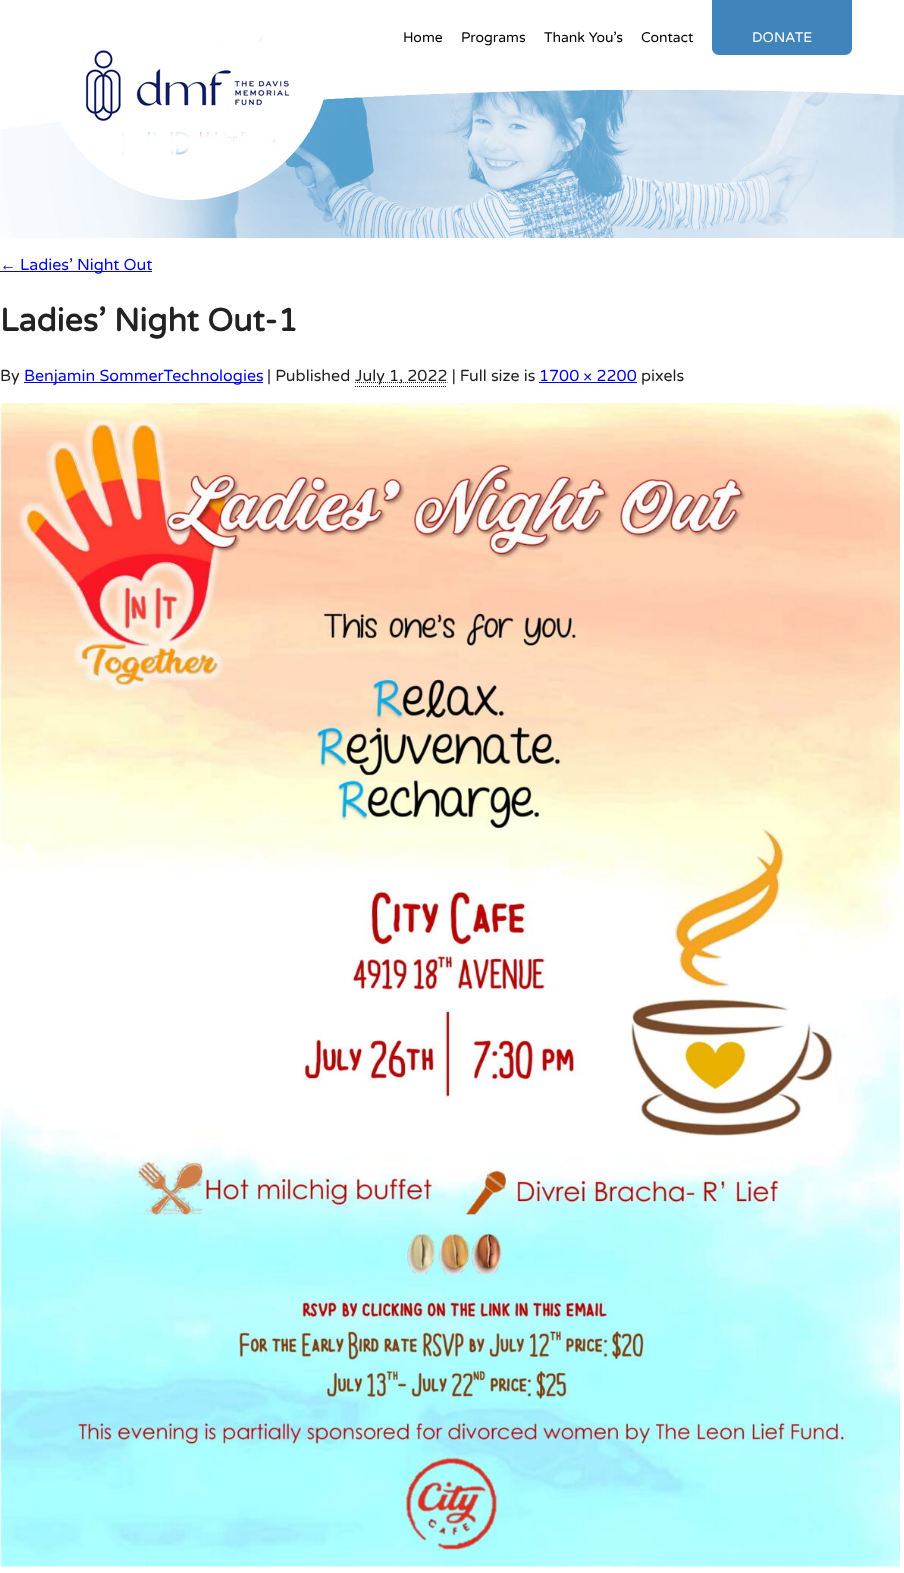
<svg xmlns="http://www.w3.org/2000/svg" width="904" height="1573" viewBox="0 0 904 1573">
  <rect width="100%" height="100%" fill="rgb(255,255,255)"/>
  <image x="0" y="90" width="904" height="148" href="pic2.png"/>
  <image x="61" y="36" width="263" height="164" href="pic1.png"/>
  <g font-family="Varela Round" font-size="14" fill="rgb(0,0,0)">
    <text x="403" y="42">Home</text>
    <text x="461" y="42">Programs</text>
    <text x="544" y="42">Thank You’s</text>
    <text x="641" y="42">Contact</text>
  </g>
  <path d="M712 0H852V48C852 52 849 55 845 55H719C715 55 712 52 712 48Z" fill="rgb(64,132,188)"/>
  <text x="752" y="42" font-family="Varela Round" font-size="14" fill="rgb(255,255,255)">DONATE</text>
  <text x="0" y="270" font-family="Liberation Sans" font-size="16" fill="rgb(0,0,238)">←</text>
  <rect x="0" y="271" width="152" height="1" fill="rgb(0,0,238)"/>
  <text x="20" y="270" font-family="Varela Round" font-size="16" fill="rgb(0,0,238)">Ladies’ Night Out</text>
  <text x="0" y="331" font-family="Varela Round" font-size="32" font-weight="bold" fill="rgb(34,34,34)">Ladies’ Night Out-1</text>
  <text x="0" y="381" font-family="Varela Round" font-size="16" fill="rgb(34,34,34)">By</text>
  <rect x="24" y="382" width="239" height="1" fill="rgb(0,0,238)"/>
  <text x="24" y="381" font-family="Varela Round" font-size="16" fill="rgb(0,0,238)">Benjamin SommerTechnologies</text>
  <text x="267" y="381" font-family="Varela Round" font-size="16" fill="rgb(34,34,34)">| Published</text>
  <path d="M355 382.5H447.5" fill="none" stroke="rgb(34,34,34)" stroke-dasharray="1 1"/>
  <text x="355" y="381" font-family="Varela Round" font-size="16" fill="rgb(34,34,34)">July 1, 2022 | Full size is</text>
  <path d="M355 386.5H447" fill="none" stroke="rgb(34,34,34)" stroke-dasharray="1 1"/>
  <text x="539" y="381" font-family="Varela Round" font-size="16" fill="rgb(0,0,238)">1700 × 2200</text>
  <rect x="539" y="382" width="98" height="1" fill="rgb(0,0,238)"/>
  <text x="641" y="381" font-family="Varela Round" font-size="16" fill="rgb(34,34,34)">pixels</text>
  <image x="0" y="403" width="900" height="1165" href="pic3.png"/>
</svg>
